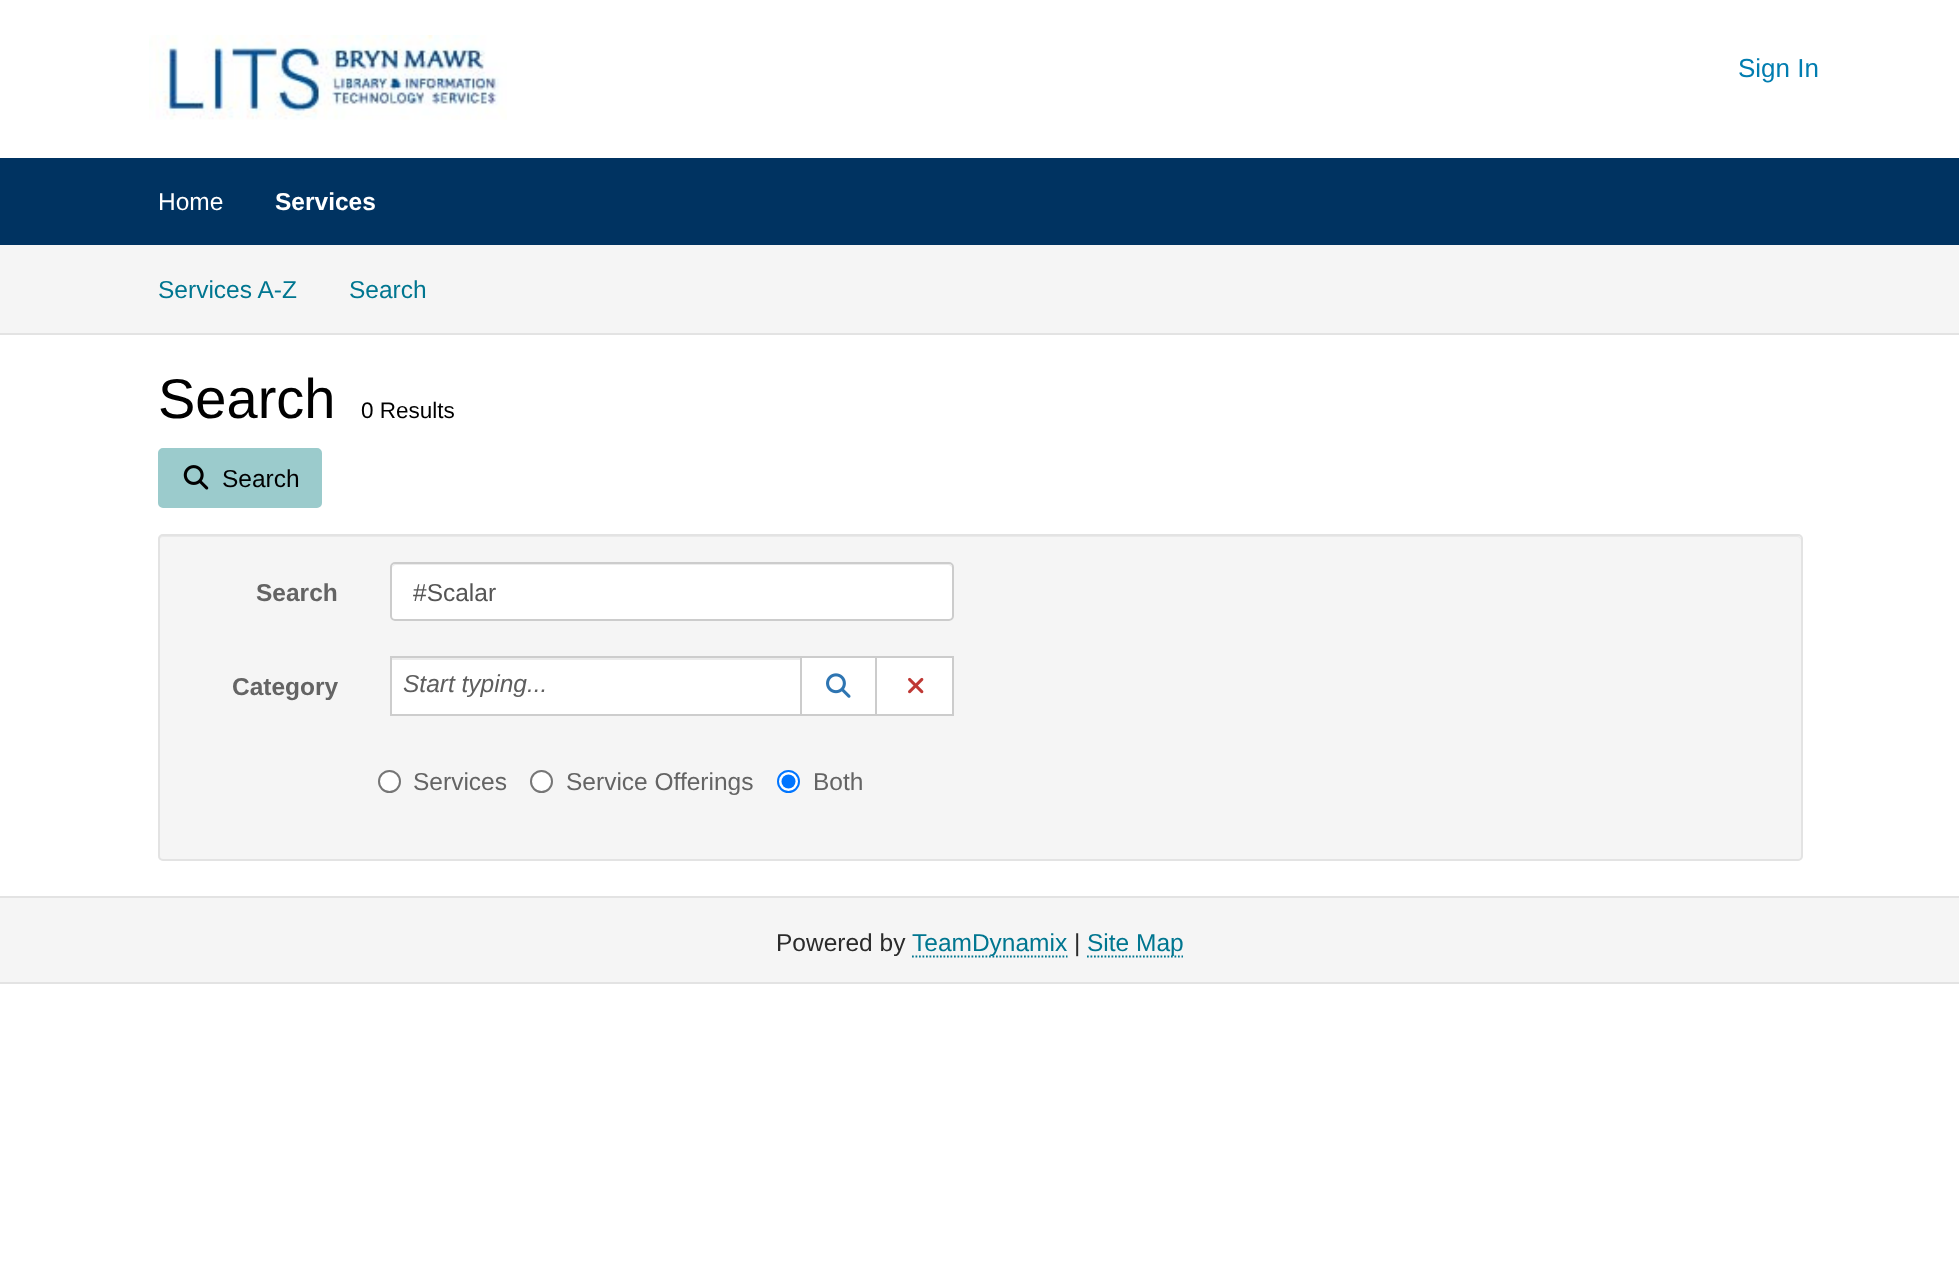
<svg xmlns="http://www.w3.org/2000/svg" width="1959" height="1273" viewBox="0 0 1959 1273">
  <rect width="100%" height="100%" fill="rgb(255,255,255)"/>
  <image x="149" y="35" width="358" height="85" href="pic1.png"/>
  <text x="1738" y="77" font-family="Liberation Sans" font-size="26" fill="rgb(1,125,176)">Sign In</text>
  <rect x="0" y="158" width="1959" height="87" fill="rgb(0,51,97)"/>
  <text x="158" y="210" font-family="Liberation Sans" font-size="24.5" fill="rgb(255,255,255)">Home</text>
  <text x="275" y="210" font-family="Liberation Sans" font-size="24.5" font-weight="bold" fill="rgb(255,255,255)">Services</text>
  <rect x="0" y="245" width="1959" height="88" fill="rgb(245,245,245)"/>
  <rect x="0" y="333" width="1959" height="2" fill="rgb(227,227,227)"/>
  <g font-family="Liberation Sans" font-size="24.5" fill="rgb(0,118,144)">
    <text x="158" y="298">Services A-Z</text>
    <text x="349" y="298">Search</text>
  </g>
  <text x="158" y="418" font-family="Liberation Sans" font-size="56" fill="rgb(0,0,0)">Search</text>
  <text x="361" y="418" font-family="Liberation Sans" font-size="22.5" fill="rgb(0,0,0)">0 Results</text>
  <rect x="159" y="449" width="162" height="58" rx="4" fill="rgb(155,203,204)" stroke="rgb(155,203,204)" stroke-width="2"/>
  <image x="183" y="465" width="26" height="25" href="pic2.png"/>
  <text x="222" y="487" font-family="Liberation Sans" font-size="24.5" fill="rgb(0,0,0)">Search</text>
  <rect x="158" y="534" width="1645" height="327" rx="5" fill="rgb(245,245,245)"/>
  <path d="M163 537H1797C1799 537 1801 539 1801 541V540C1801 538 1799 536 1797 536H163C161 536 159 538 159 540V541C159 539 161 537 163 537Z" fill="rgb(233,233,233)"/>
  <rect x="159" y="535" width="1643" height="325" rx="4" fill="none" stroke="rgb(227,227,227)" stroke-width="2"/>
  <text x="256" y="601" font-family="Liberation Sans" font-size="24.5" font-weight="bold" fill="rgb(100,100,100)">Search</text>
  <rect x="390" y="562" width="564" height="59" rx="5" fill="rgb(255,255,255)"/>
  <path d="M396 565H948C950 565 952 567 952 569C952 566 951 564 948 564H396C393 564 392 566 392 569C392 567 394 565 396 565Z" fill="rgb(236,236,236)"/>
  <rect x="391" y="563" width="562" height="57" rx="4" fill="none" stroke="rgb(204,204,204)" stroke-width="2"/>
  <text x="413" y="601" font-family="Liberation Sans" font-size="24.5" fill="rgb(85,85,85)">#Scalar</text>
  <text x="232" y="695" font-family="Liberation Sans" font-size="24.5" font-weight="bold" fill="rgb(100,100,100)">Category</text>
  <rect x="392" y="660" width="408" height="54" fill="rgb(255,255,255)"/>
  <rect x="392" y="658" width="408" height="2" fill="rgb(236,236,236)"/>
  <rect x="391" y="657" width="410" height="58" fill="none" stroke="rgb(205,205,205)" stroke-width="2"/>
  <text x="403" y="692" font-family="Liberation Sans" font-size="24.5" font-style="italic" fill="rgb(94,94,94)">Start typing...</text>
  <rect x="801" y="657" width="75" height="58" fill="rgb(255,255,255)" stroke="rgb(204,204,204)" stroke-width="2"/>
  <image x="826" y="673" width="25" height="25" href="pic3.png"/>
  <rect x="876" y="657" width="77" height="58" fill="rgb(255,255,255)" stroke="rgb(204,204,204)" stroke-width="2"/>
  <image x="908" y="677" width="16" height="17" href="pic4.png"/>
  <circle cx="389.5" cy="781.5" r="10.5" fill="rgb(255,255,255)" stroke="rgb(118,118,118)" stroke-width="2"/>
  <text x="413" y="790" font-family="Liberation Sans" font-size="24.5" fill="rgb(100,100,100)">Services</text>
  <circle cx="541.5" cy="781.5" r="10.5" fill="rgb(255,255,255)" stroke="rgb(118,118,118)" stroke-width="2"/>
  <text x="566" y="790" font-family="Liberation Sans" font-size="24.5" fill="rgb(100,100,100)">Service Offerings</text>
  <circle cx="788.5" cy="781.5" r="10.5" fill="rgb(255,255,255)" stroke="rgb(0,117,255)" stroke-width="2"/>
  <circle cx="788.5" cy="781.5" r="7" fill="rgb(0,117,255)"/>
  <text x="813" y="790" font-family="Liberation Sans" font-size="24.5" fill="rgb(100,100,100)">Both</text>
  <rect x="0" y="898" width="1959" height="84" fill="rgb(245,245,245)"/>
  <rect x="0" y="896" width="1959" height="2" fill="rgb(227,227,227)"/>
  <rect x="0" y="982" width="1959" height="2" fill="rgb(227,227,227)"/>
  <text x="776" y="951" font-family="Liberation Sans" font-size="24.5" fill="rgb(43,43,43)">Powered by</text>
  <path d="M912 956.5H1067.5" fill="none" stroke="rgb(0,118,144)" stroke-width="1.8" stroke-dasharray="1.75 1.75"/>
  <text x="912" y="951" font-family="Liberation Sans" font-size="24.5" fill="rgb(0,118,144)">TeamDynamix</text>
  <text x="1074" y="951" font-family="Liberation Sans" font-size="24.5" fill="rgb(43,43,43)">|</text>
  <path d="M1087 956.5H1183" fill="none" stroke="rgb(0,118,144)" stroke-width="1.8" stroke-dasharray="1.75 1.75"/>
  <text x="1087" y="951" font-family="Liberation Sans" font-size="24.5" fill="rgb(0,118,144)">Site Map</text>
</svg>
